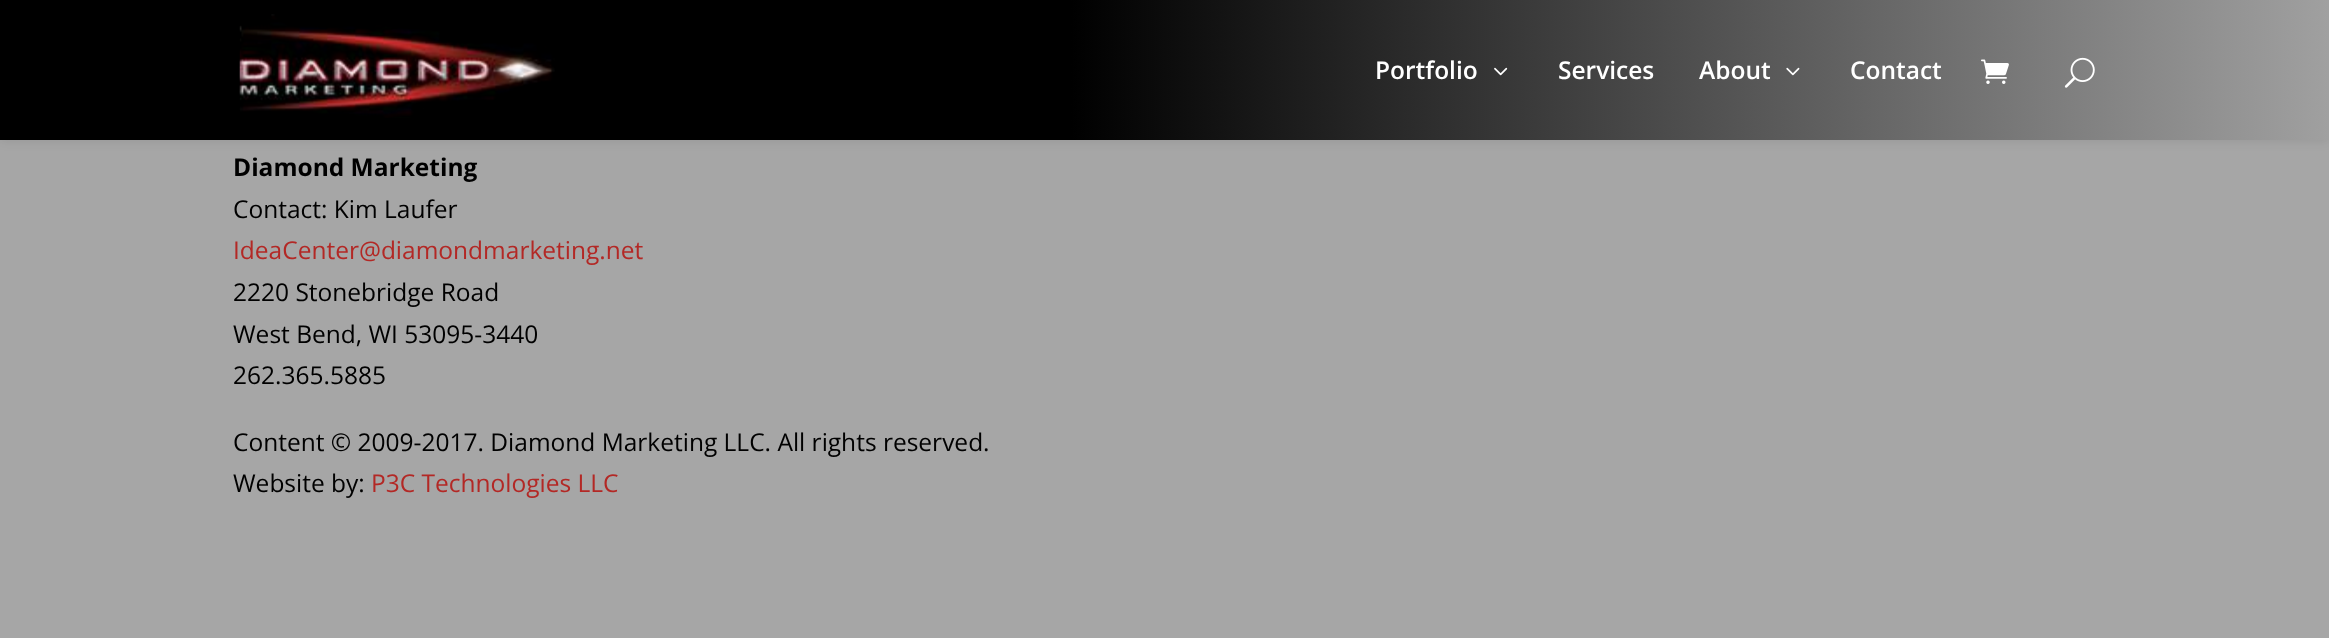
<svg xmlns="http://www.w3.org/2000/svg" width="2329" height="638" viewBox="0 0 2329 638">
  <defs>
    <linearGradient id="g1" gradientUnits="userSpaceOnUse" x1="0" y1="70" x2="2329" y2="70"><stop offset="0.46" stop-color="rgb(0,0,0)"/><stop offset="1" stop-color="rgb(160,160,160)"/></linearGradient>
  </defs>
  <rect width="100%" height="100%" fill="rgb(166,166,166)"/>
  <rect x="0" y="0" width="2329" height="140" fill="rgba(0,0,0,0.1)" filter="blur(6px)"/>
  <rect x="0" y="0" width="2329" height="140" fill="url(#g1)"/>
  <image x="239" y="14" width="316" height="104" href="pic1.png"/>
  <text x="1375" y="79" font-family="Open Sans" font-size="24.5" font-weight="600" fill="rgb(255,255,255)">Portfolio</text>
  <image x="1494" y="67" width="14" height="9" href="pic2.png"/>
  <g font-family="Open Sans" font-size="24.5" font-weight="600" fill="rgb(255,255,255)">
    <text x="1558" y="79">Services</text>
    <text x="1699" y="79">About</text>
  </g>
  <image x="1786" y="67" width="14" height="9" href="pic3.png"/>
  <text x="1850" y="79" font-family="Open Sans" font-size="24.5" font-weight="600" fill="rgb(255,255,255)">Contact</text>
  <image x="1981" y="59" width="28" height="25" href="pic4.png"/>
  <image x="2064" y="57" width="31" height="31" href="pic5.png"/>
  <text x="233" y="176" font-family="Open Sans" font-size="24.5" font-weight="bold" fill="rgb(0,0,0)">Diamond Marketing</text>
  <text x="233" y="218" font-family="Open Sans" font-size="24.5" fill="rgb(0,0,0)">Contact: Kim Laufer</text>
  <text x="233" y="259" font-family="Open Sans" font-size="24.5" fill="rgb(179,40,37)">IdeaCenter@diamondmarketing.net</text>
  <g font-family="Open Sans" font-size="24.5" fill="rgb(0,0,0)">
    <text>
      <tspan x="233" y="301">2220 Stonebridge Road</tspan>
      <tspan x="233" y="343">West Bend, WI 53095-3440</tspan>
      <tspan x="233" y="384">262.365.5885</tspan>
    </text>
    <text>
      <tspan x="233" y="451">Content © 2009-2017. Diamond Marketing LLC. All rights reserved.</tspan>
      <tspan x="233" y="492">Website by:</tspan>
    </text>
  </g>
  <text x="371" y="492" font-family="Open Sans" font-size="24.5" fill="rgb(179,40,37)">P3C Technologies LLC</text>
</svg>
